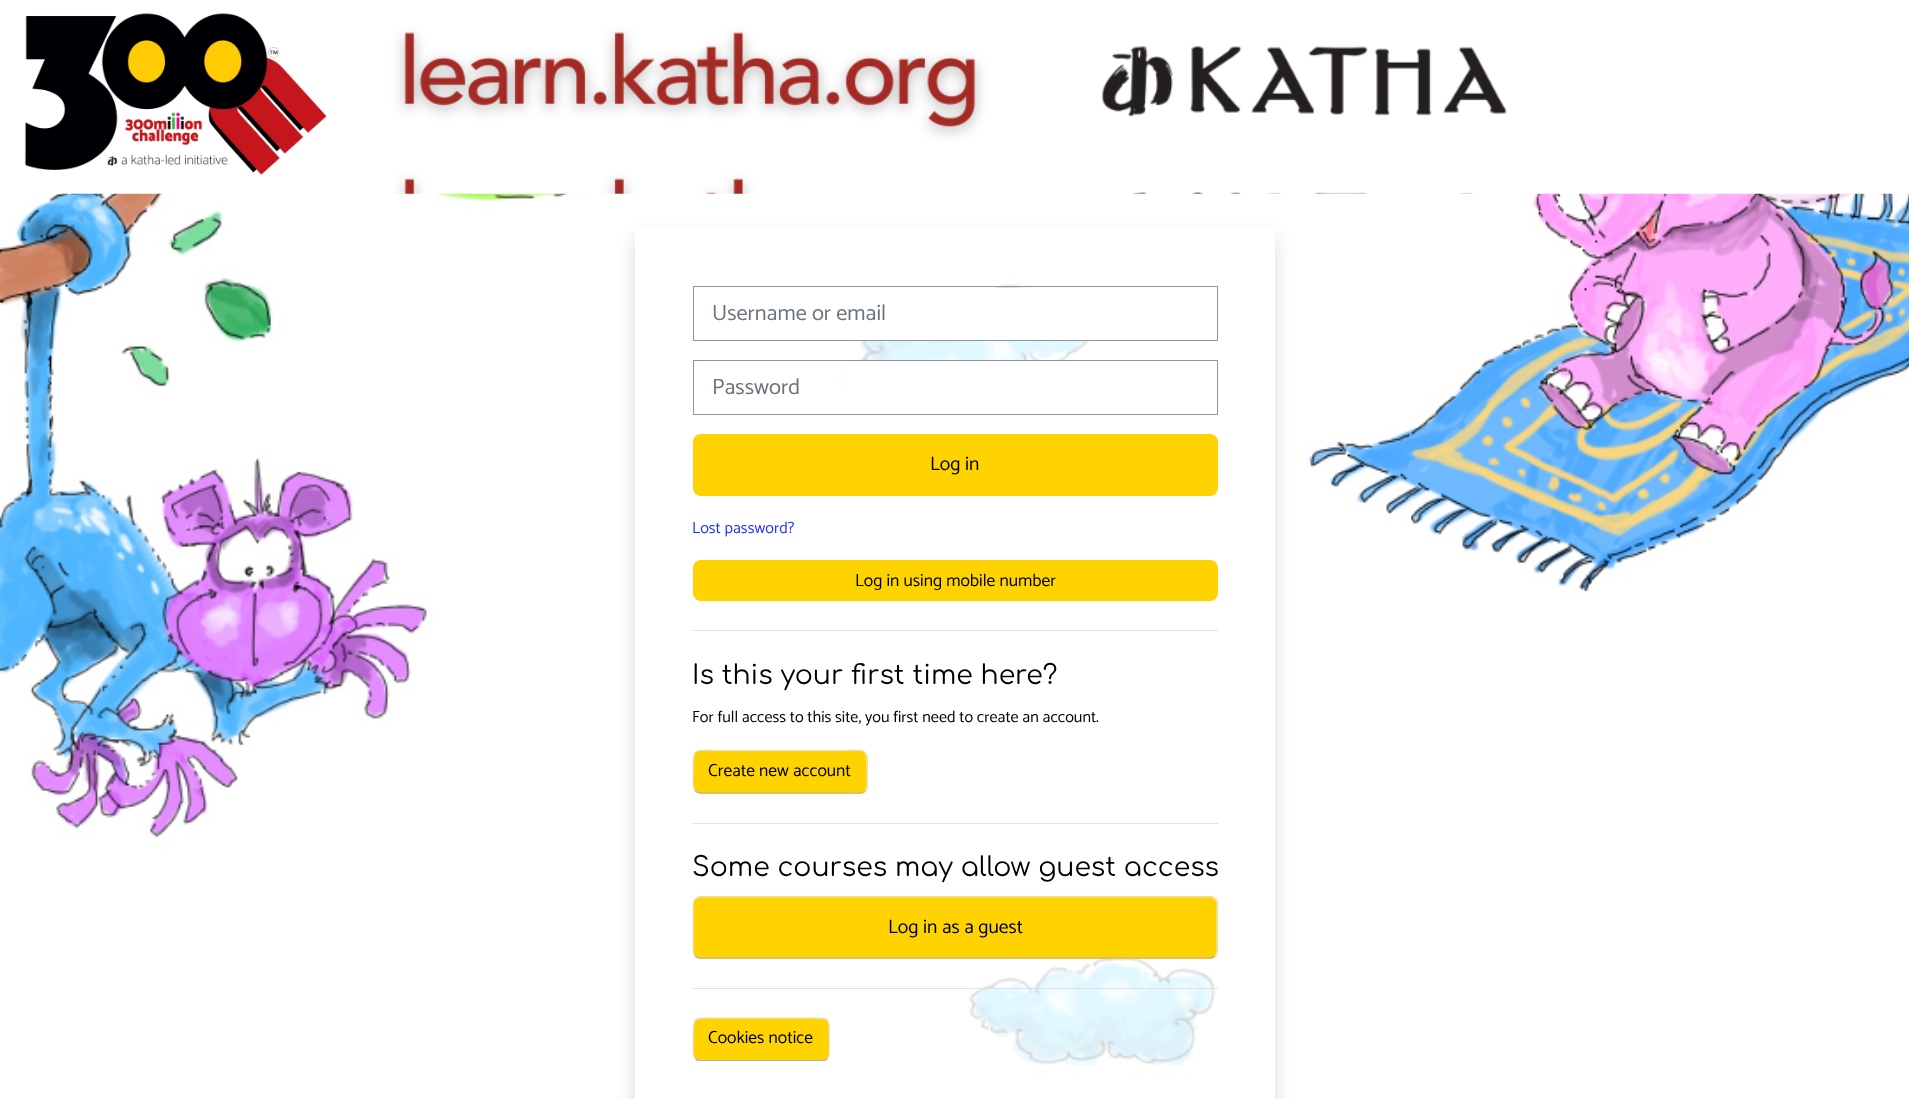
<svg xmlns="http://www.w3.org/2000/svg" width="1909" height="1099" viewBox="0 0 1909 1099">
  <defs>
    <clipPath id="clip1"><path d="M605 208H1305V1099H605ZM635 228H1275V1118H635Z" clip-rule="evenodd"/></clipPath>
  </defs>
  <rect width="100%" height="100%" fill="rgb(255,255,255)"/>
  <image x="0" y="193" width="1909" height="906" href="pic1.png"/>
  <image x="0" y="0" width="1909" height="194" href="pic2.png"/>
  <image x="24" y="13" width="303" height="162" href="pic3.png"/>
  <g clip-path="url(#clip1)">
    <rect x="635" y="238" width="640" height="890" fill="rgba(0,0,0,0.15)" filter="blur(9.5px)"/>
  </g>
  <rect x="847" y="281" width="371" height="789" fill="rgba(255,255,255,0.8)"/>
  <rect x="859" y="288" width="232" height="52" fill="rgb(255,255,255)"/>
  <rect x="693.5" y="286.5" width="524" height="54" fill="none" stroke="rgb(143,149,158)"/>
  <text x="712" y="320" font-family="Catamaran" font-size="22.25" fill="rgb(106,115,123)">Username or email</text>
  <rect x="848" y="361" width="216" height="45" fill="rgb(255,255,255)"/>
  <rect x="693.5" y="360.5" width="524" height="54" fill="none" stroke="rgb(143,149,158)"/>
  <text x="712" y="394" font-family="Catamaran" font-size="22.25" fill="rgb(106,115,123)">Password</text>
  <rect x="693" y="434" width="525" height="62" rx="8" fill="rgb(255,211,0)"/>
  <text x="930" y="470" font-family="Catamaran" font-size="19.5" fill="rgb(0,0,0)">Log in</text>
  <text x="692" y="533" font-family="Catamaran" font-size="16.15" fill="rgb(30,52,250)">Lost password?</text>
  <rect x="693" y="560" width="525" height="41" rx="8" fill="rgb(255,211,0)"/>
  <text x="855" y="586" font-family="Catamaran" font-size="17.5" fill="rgb(0,0,0)">Log in using mobile number</text>
  <rect x="693" y="630" width="525" height="1" fill="rgb(222,226,230)"/>
  <text x="692" y="684" font-family="Comfortaa" font-size="26.75" fill="rgb(0,0,0)">Is this your first time here?</text>
  <text x="692" y="722" font-family="Catamaran" font-size="16.15" fill="rgb(0,0,0)">For full access to this site, you first need to create an account.</text>
  <rect x="693" y="750" width="175" height="44" rx="8" fill="rgb(255,211,0)"/>
  <path d="M865 791C863.5 792 862.5 793 860.5 793H699.5L695 791" fill="none" stroke="rgb(179,179,179)" stroke-width="1.2"/>
  <path d="M695 791C691.5 787.5 693 781 693 776.5C693 744.5 690 750.5 726.5 750.5H833.5C870 750.5 867 744.5 867 776.5C867 781 868.5 787.5 865 791" fill="none" stroke="rgb(230,230,230)" stroke-width="1.2"/>
  <text x="708" y="776" font-family="Catamaran" font-size="17.5" fill="rgb(0,0,0)">Create new account</text>
  <rect x="693" y="823" width="525" height="1" fill="rgb(222,226,230)"/>
  <text x="692" y="876" font-family="Comfortaa" font-size="26.75" fill="rgb(0,0,0)">Some courses may allow guest access</text>
  <rect x="693" y="896" width="525" height="63" rx="8" fill="rgb(255,211,0)"/>
  <path d="M1215 956C1213.5 957.5 1212 958 1210 958H700C698 958 696.5 957.5 695 956" fill="none" stroke="rgb(179,179,179)" stroke-width="1.2"/>
  <path d="M695 956C694 955 693 953 693 951V904C693 902 694 900 695 899C696.5 897.5 698 897 700 897H1210C1212 897 1213.5 897.5 1215 899C1216 900 1217 902 1217 904V951C1217 953 1216 955 1215 956" fill="none" stroke="rgb(230,230,230)" stroke-width="1.2"/>
  <text x="888" y="933" font-family="Catamaran" font-size="19.5" fill="rgb(0,0,0)">Log in as a guest</text>
  <rect x="693" y="988" width="525" height="1" fill="rgb(222,226,230)"/>
  <rect x="693" y="1018" width="137" height="43" rx="8" fill="rgb(255,211,0)"/>
  <path d="M827.5 1058.5C826 1060 824.5 1060.5 822.5 1060.5H700C698 1060.5 696.5 1060 695 1058.5" fill="none" stroke="rgb(179,179,179)" stroke-width="1.2"/>
  <path d="M695 1058.5C692.5 1056 693 1052.5 693 1049V1039.5C693 1014 692 1018 720.5 1018H802C830.5 1018 829.5 1014 829.5 1039.5V1049C829.5 1052.5 830 1056 827.5 1058.5" fill="none" stroke="rgb(230,230,230)" stroke-width="1.2"/>
  <text x="708" y="1043" font-family="Catamaran" font-size="17.5" fill="rgb(0,0,0)">Cookies notice</text>
</svg>
